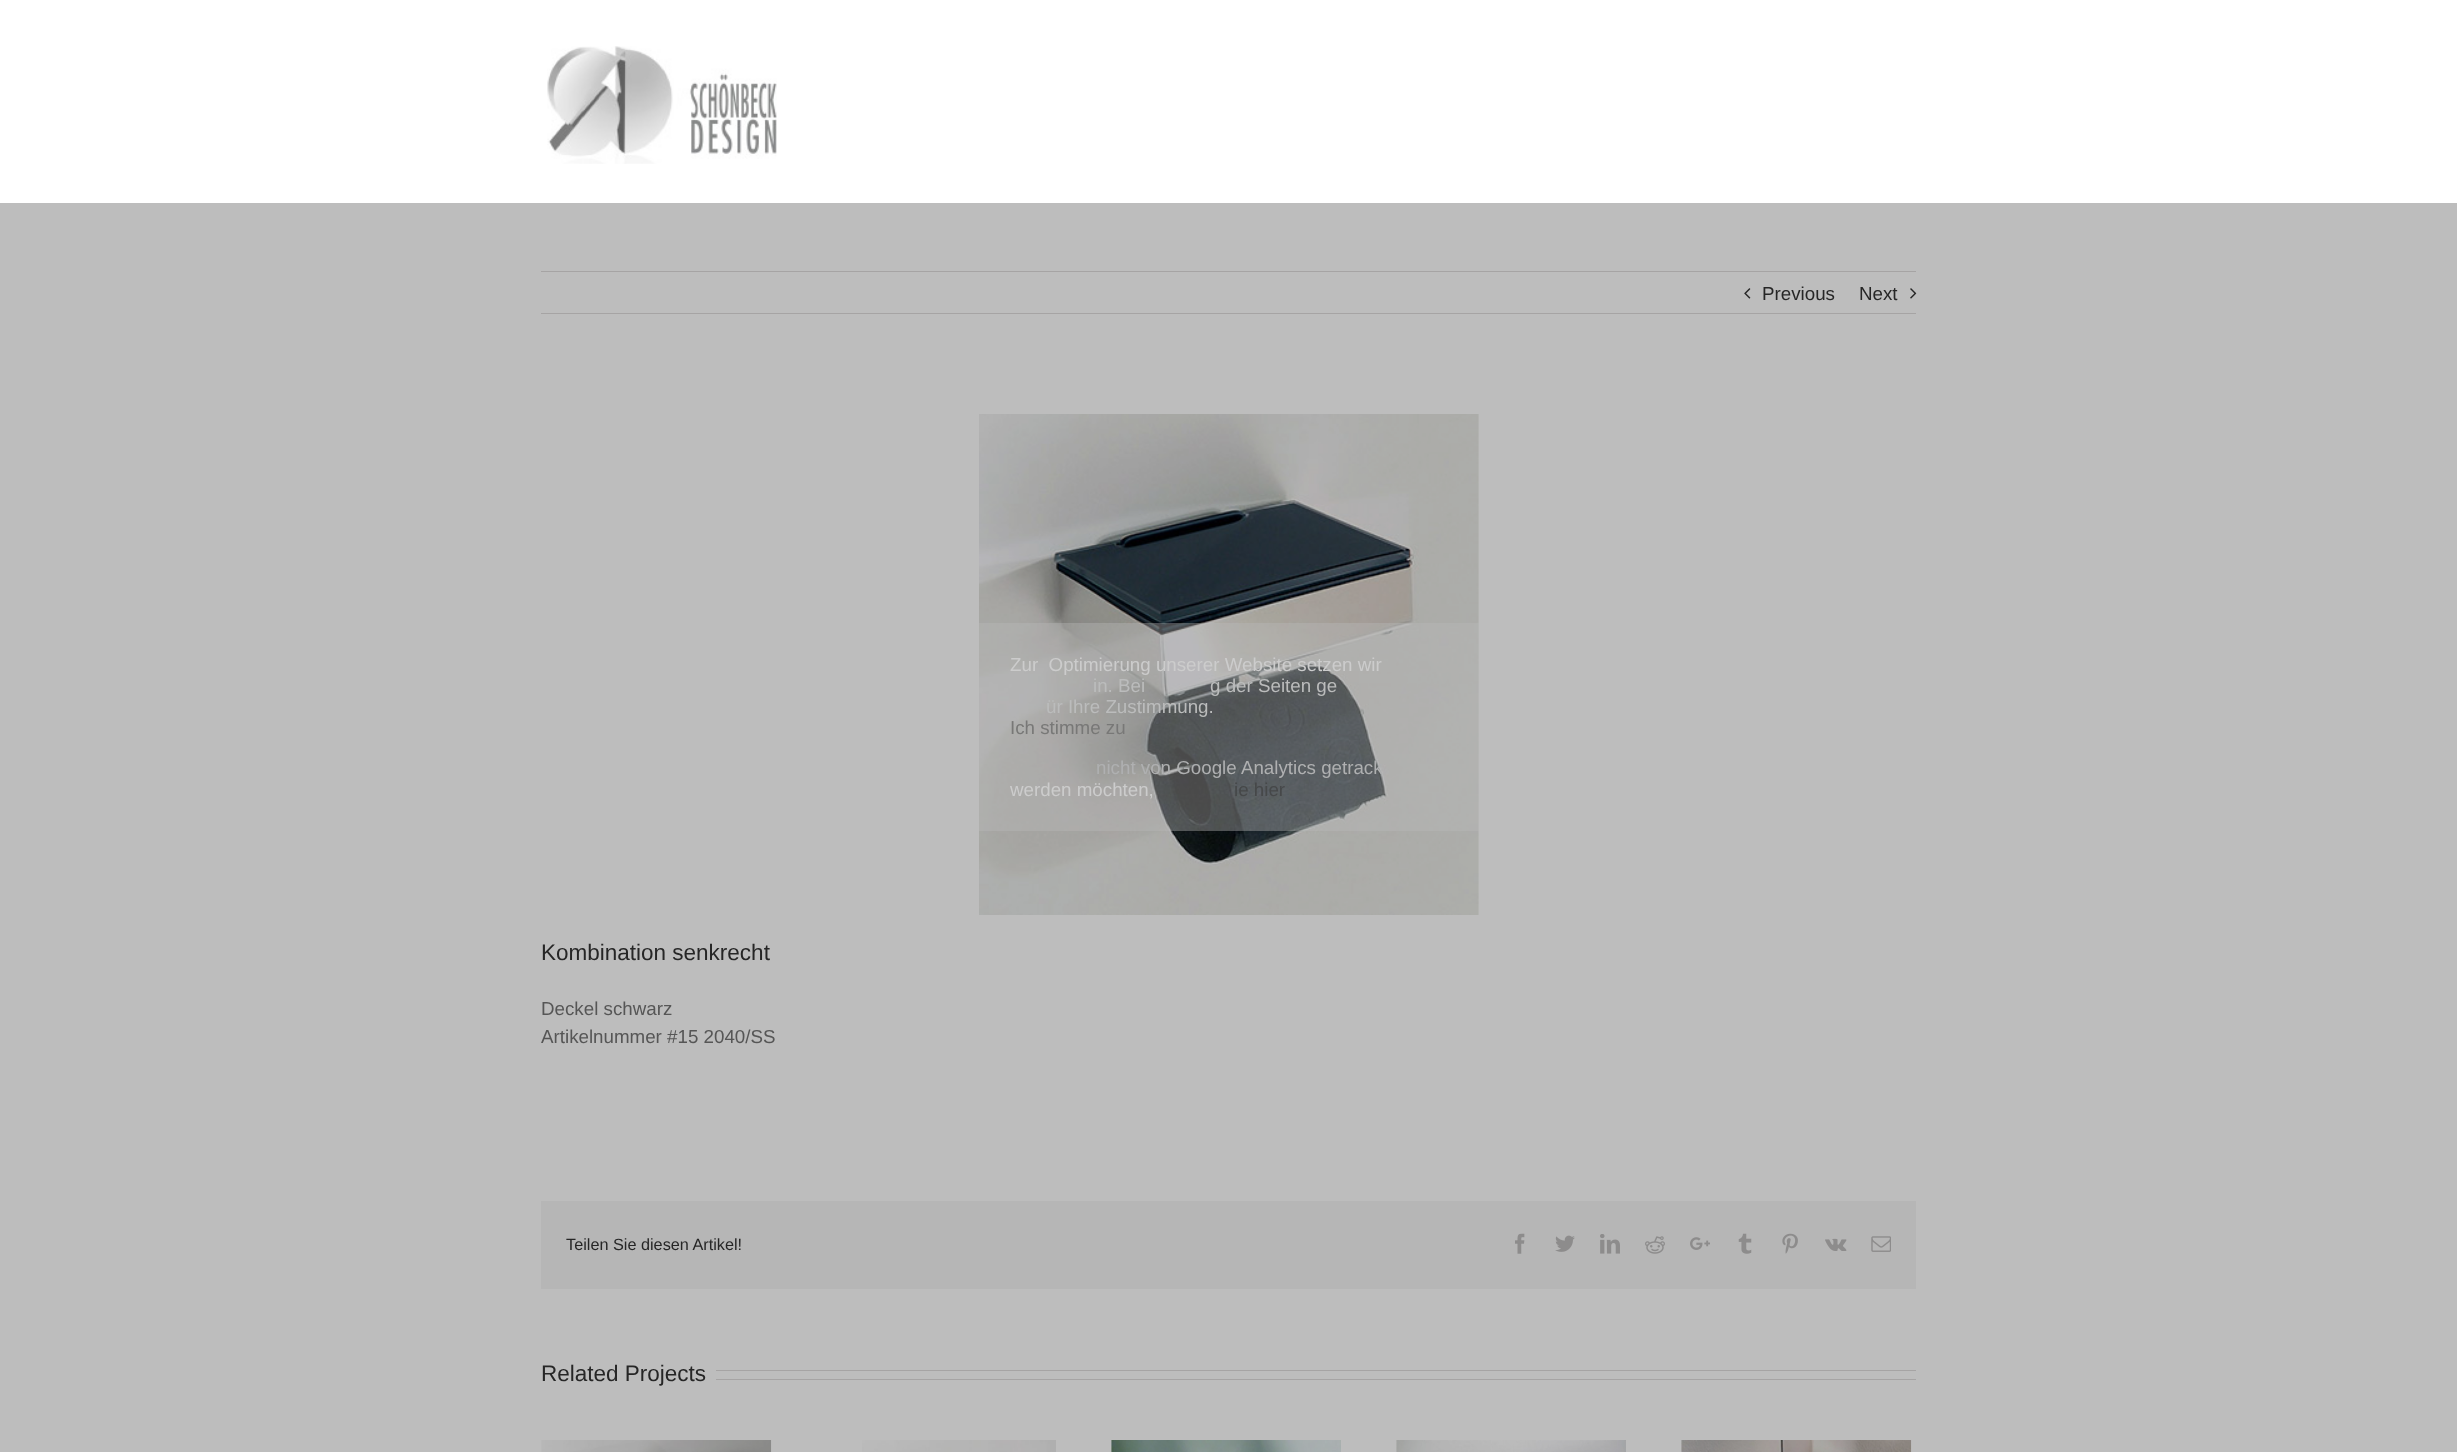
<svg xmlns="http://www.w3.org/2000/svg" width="2457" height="1452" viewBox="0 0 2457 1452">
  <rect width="100%" height="100%" fill="rgb(189,189,189)"/>
  <rect x="0" y="0" width="2457" height="203" fill="rgb(255,255,255)"/>
  <image x="547" y="46" width="230" height="118" href="pic1.png"/>
  <rect x="541" y="271" width="1375" height="1" fill="rgb(166,164,164)"/>
  <rect x="541" y="313" width="1375" height="1" fill="rgb(166,164,164)"/>
  <image x="1744" y="288" width="7" height="11" href="pic2.png"/>
  <g font-family="Liberation Sans" font-size="18.75" fill="rgb(38,38,38)">
    <text x="1762" y="300">Previous</text>
    <text x="1859" y="300">Next</text>
  </g>
  <image x="1910" y="288" width="7" height="11" href="pic3.png"/>
  <image x="979" y="414" width="500" height="501" href="pic4.png"/>
  <text x="541" y="960" font-family="Liberation Sans" font-size="22.5" fill="rgb(38,38,38)">Kombination senkrecht</text>
  <g font-family="Liberation Sans" font-size="18.75" fill="rgb(86,86,86)">
    <text>
      <tspan x="541" y="1015">Deckel schwarz</tspan>
      <tspan x="541" y="1043">Artikelnummer #15 2040/SS</tspan>
    </text>
  </g>
  <rect x="541" y="1201" width="1375" height="88" fill="rgb(182,182,182)"/>
  <text x="566" y="1250" font-family="Liberation Sans" font-size="16.25" fill="rgb(38,38,38)">Teilen Sie diesen Artikel!</text>
  <image x="1515" y="1233" width="10" height="21" href="pic5.png"/>
  <image x="1555" y="1235" width="20" height="17" href="pic6.png"/>
  <image x="1600" y="1234" width="20" height="20" href="pic7.png"/>
  <image x="1645" y="1236" width="20" height="18" href="pic8.png"/>
  <image x="1690" y="1237" width="20" height="13" href="pic9.png"/>
  <image x="1738" y="1233" width="14" height="21" href="pic10.png"/>
  <image x="1782" y="1233" width="16" height="21" href="pic11.png"/>
  <image x="1825" y="1238" width="22" height="13" href="pic12.png"/>
  <image x="1871" y="1236" width="20" height="16" href="pic13.png"/>
  <text x="541" y="1381" font-family="Liberation Sans" font-size="22.5" fill="rgb(38,38,38)">Related Projects</text>
  <rect x="716" y="1370" width="1200" height="1" fill="rgb(166,164,164)"/>
  <rect x="716" y="1379" width="1200" height="1" fill="rgb(166,164,164)"/>
  <image x="541" y="1440" width="231" height="12" href="pic14.png"/>
  <image x="862" y="1440" width="194" height="12" href="pic15.png"/>
  <image x="1111" y="1440" width="230" height="12" href="pic16.png"/>
  <image x="1396" y="1440" width="230" height="12" href="pic17.png"/>
  <image x="1681" y="1440" width="231" height="12" href="pic18.png"/>
  <rect x="979" y="623" width="500" height="208" fill="rgba(186,186,186,0.4)"/>
  <text x="1010" y="671" font-family="Liberation Sans" font-size="18.75" fill="rgb(204,204,204)" xml:space="preserve">Zur  Optimierung unserer Website setzen wir</text>
  <g font-family="Liberation Sans" font-size="18.75" fill="rgb(187,188,188)">
    <text x="1093" y="692">in. Bei</text>
    <text x="1210" y="692">g der Seiten ge</text>
    <text x="1046" y="713">ür Ihre Zustimmung.</text>
  </g>
  <text x="1010" y="734" font-family="Liberation Sans" font-size="18.75" fill="rgb(120,120,119)">Ich stimme zu</text>
  <text x="1096" y="774" font-family="Liberation Sans" font-size="18.75" fill="rgb(175,176,177)">nicht von Google Analytics getrack</text>
  <text x="1010" y="796" font-family="Liberation Sans" font-size="18.75" fill="rgb(204,204,204)">werden möchten,</text>
  <text x="1234" y="796" font-family="Liberation Sans" font-size="18.75" fill="rgb(70,72,73)">ie hier</text>
</svg>
